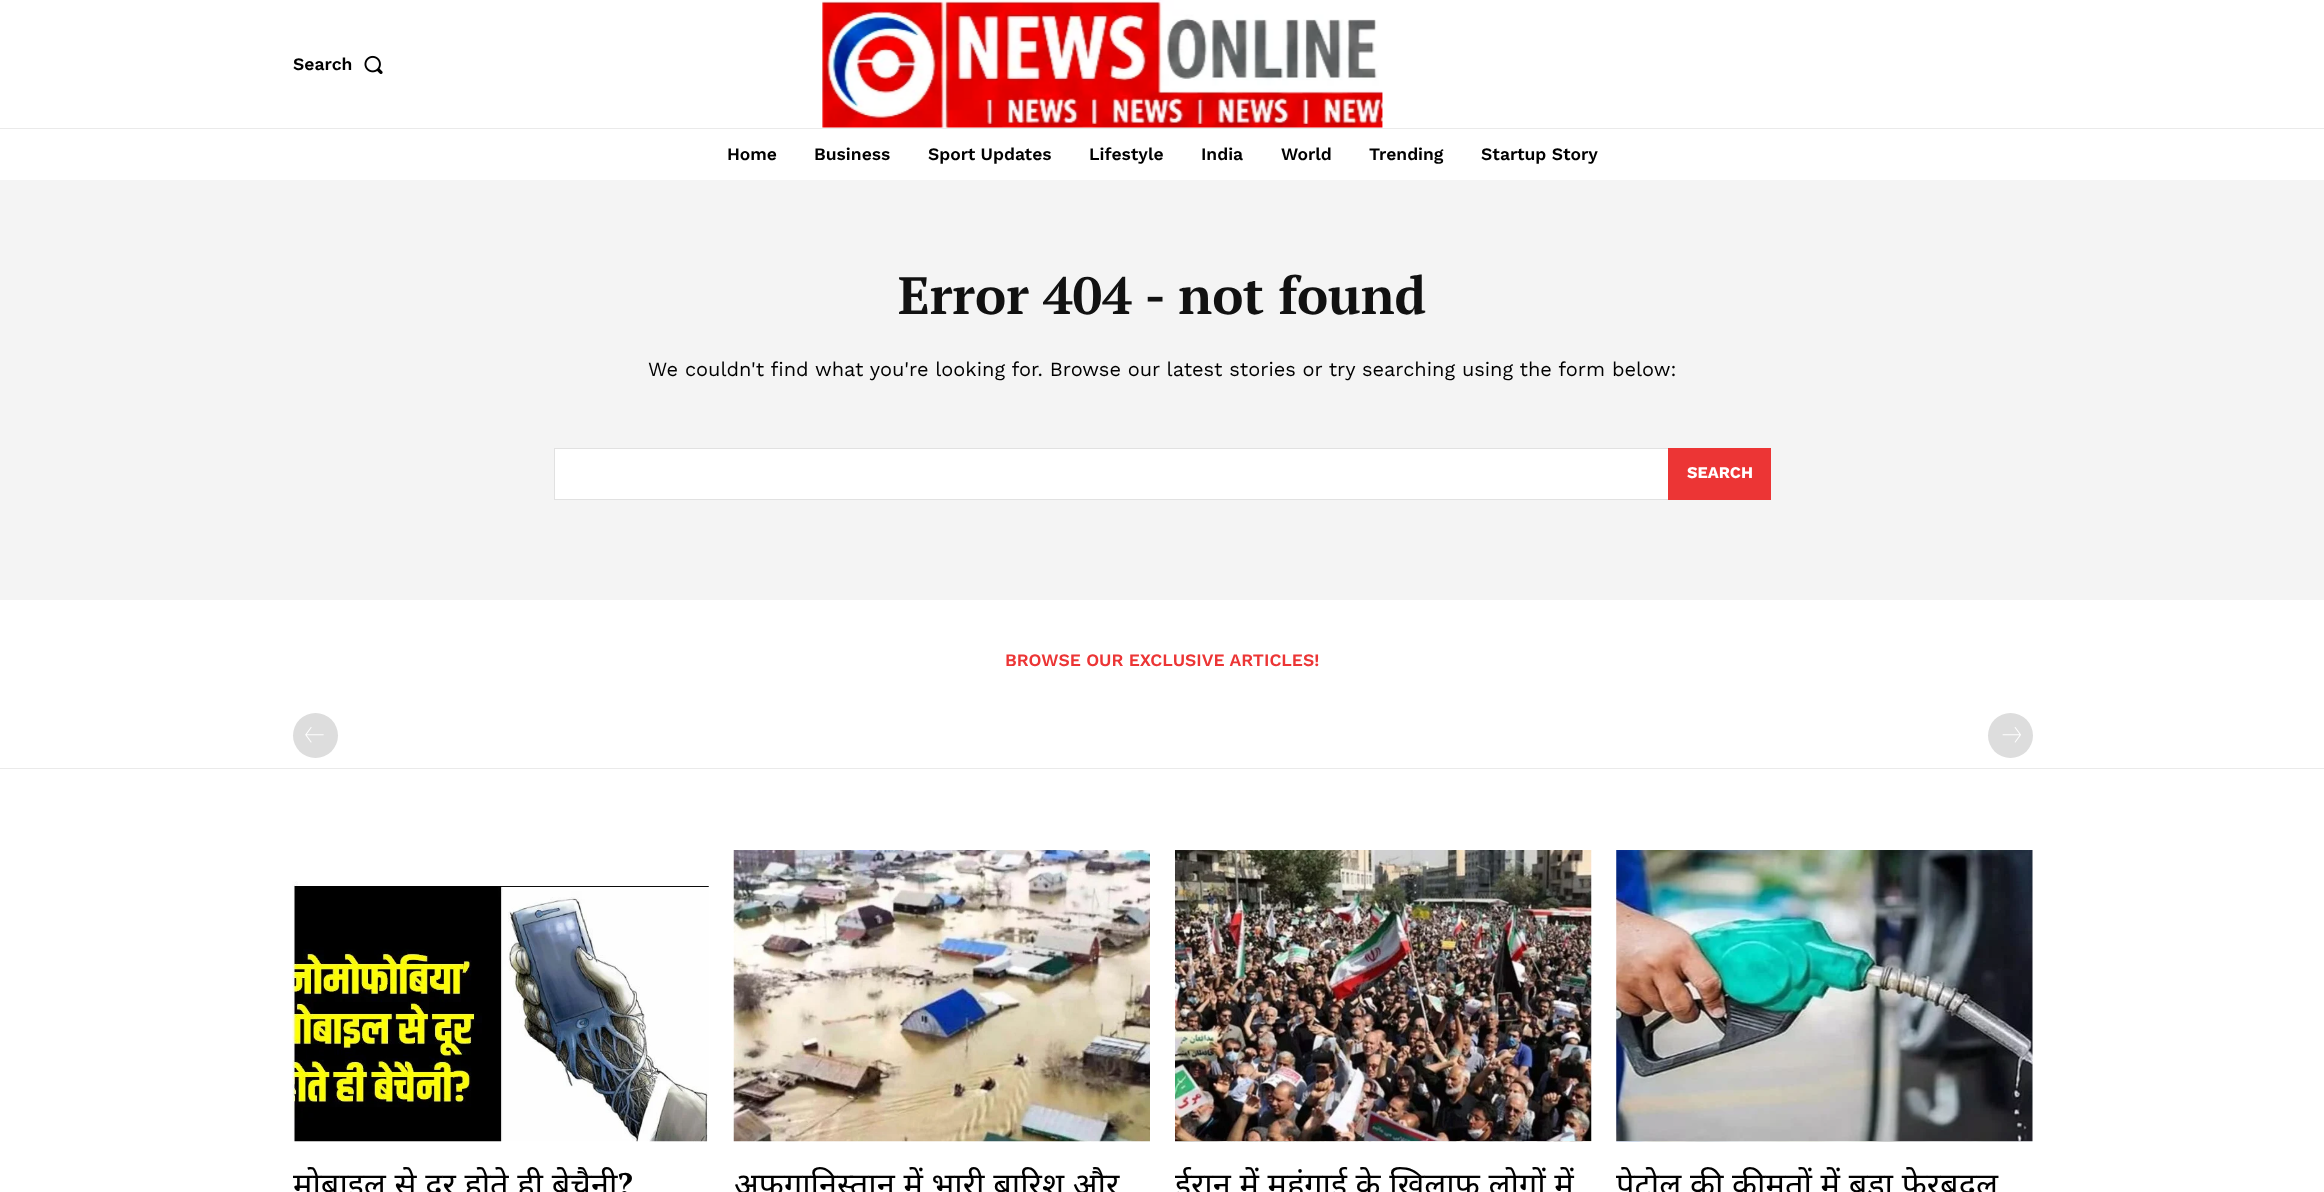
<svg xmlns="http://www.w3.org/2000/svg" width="2324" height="1192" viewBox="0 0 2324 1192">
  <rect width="100%" height="100%" fill="rgb(255,255,255)"/>
  <text x="293" y="70" font-family="Work Sans" font-size="17.5" font-weight="600" fill="rgb(0,0,0)">Search</text>
  <image x="364" y="55" width="19" height="19" href="pic1.png"/>
  <image x="822" y="0" width="561" height="128" href="pic2.png"/>
  <rect x="0" y="128" width="2324" height="1" fill="rgb(234,234,234)"/>
  <g font-family="Work Sans" font-size="17.5" font-weight="600" fill="rgb(0,0,0)">
    <text x="727" y="160">Home</text>
    <text x="814" y="160">Business</text>
    <text x="928" y="160">Sport Updates</text>
    <text x="1089" y="160">Lifestyle</text>
    <text x="1201" y="160">India</text>
    <text x="1281" y="160">World</text>
    <text x="1369" y="160">Trending</text>
    <text x="1481" y="160">Startup Story</text>
  </g>
  <rect x="0" y="180" width="2324" height="420" fill="rgb(244,244,244)"/>
  <text x="898" y="314" font-family="PT Serif" font-size="52.5" font-weight="bold" fill="rgb(17,17,17)">Error 404 - not found</text>
  <text x="648" y="376" font-family="Work Sans" font-size="20" fill="rgb(0,0,0)">We couldn't find what you're looking for. Browse our latest stories or try searching using the form below:</text>
  <rect x="555" y="449" width="1113" height="50" fill="rgb(255,255,255)"/>
  <rect x="554.5" y="448.5" width="1216" height="51" fill="none" stroke="rgb(225,225,225)"/>
  <rect x="1668" y="448" width="103" height="52" fill="rgb(236,53,53)"/>
  <text x="1687" y="478" font-family="Work Sans" font-size="16.25" font-weight="bold" fill="rgb(255,255,255)">SEARCH</text>
  <text x="1005" y="666" font-family="Work Sans" font-size="17.5" font-weight="600" fill="rgb(236,53,53)">BROWSE OUR EXCLUSIVE ARTICLES!</text>
  <circle cx="315.5" cy="735.5" r="22.5" fill="rgb(221,221,221)"/>
  <image x="305" y="727" width="19" height="16" href="pic3.png"/>
  <circle cx="2010.5" cy="735.5" r="22.5" fill="rgb(221,221,221)"/>
  <image x="2002" y="727" width="19" height="16" href="pic4.png"/>
  <rect x="0" y="768" width="2324" height="1" fill="rgb(234,234,234)"/>
  <image x="292" y="881" width="417" height="261" href="pic5.png"/>
  <text x="293" y="1196" word-spacing="0.25" font-family="Noto Sans" font-size="32.5" fill="rgb(0,0,0)">मोबाइल से दूर होते ही बेचैनी</text>
  <text x="617" y="1196" font-family="PT Serif" font-size="32.5" font-weight="bold" fill="rgb(0,0,0)">?</text>
  <image x="733" y="850" width="417" height="292" href="pic6.png"/>
  <text x="734" y="1196" word-spacing="0.25" font-family="Noto Sans" font-size="32.5" fill="rgb(0,0,0)">अफगानिस्तान में भारी बारिश और</text>
  <image x="1175" y="850" width="417" height="292" href="pic7.png"/>
  <text x="1175" y="1196" word-spacing="0.25" font-family="Noto Sans" font-size="32.5" fill="rgb(0,0,0)">ईरान में महंगाई के खिलाफ लोगों में</text>
  <image x="1616" y="850" width="417" height="292" href="pic8.png"/>
  <text x="1616" y="1196" word-spacing="0.25" font-family="Noto Sans" font-size="32.5" fill="rgb(0,0,0)">पेट्रोल की कीमतों में बड़ा फेरबदल</text>
</svg>
